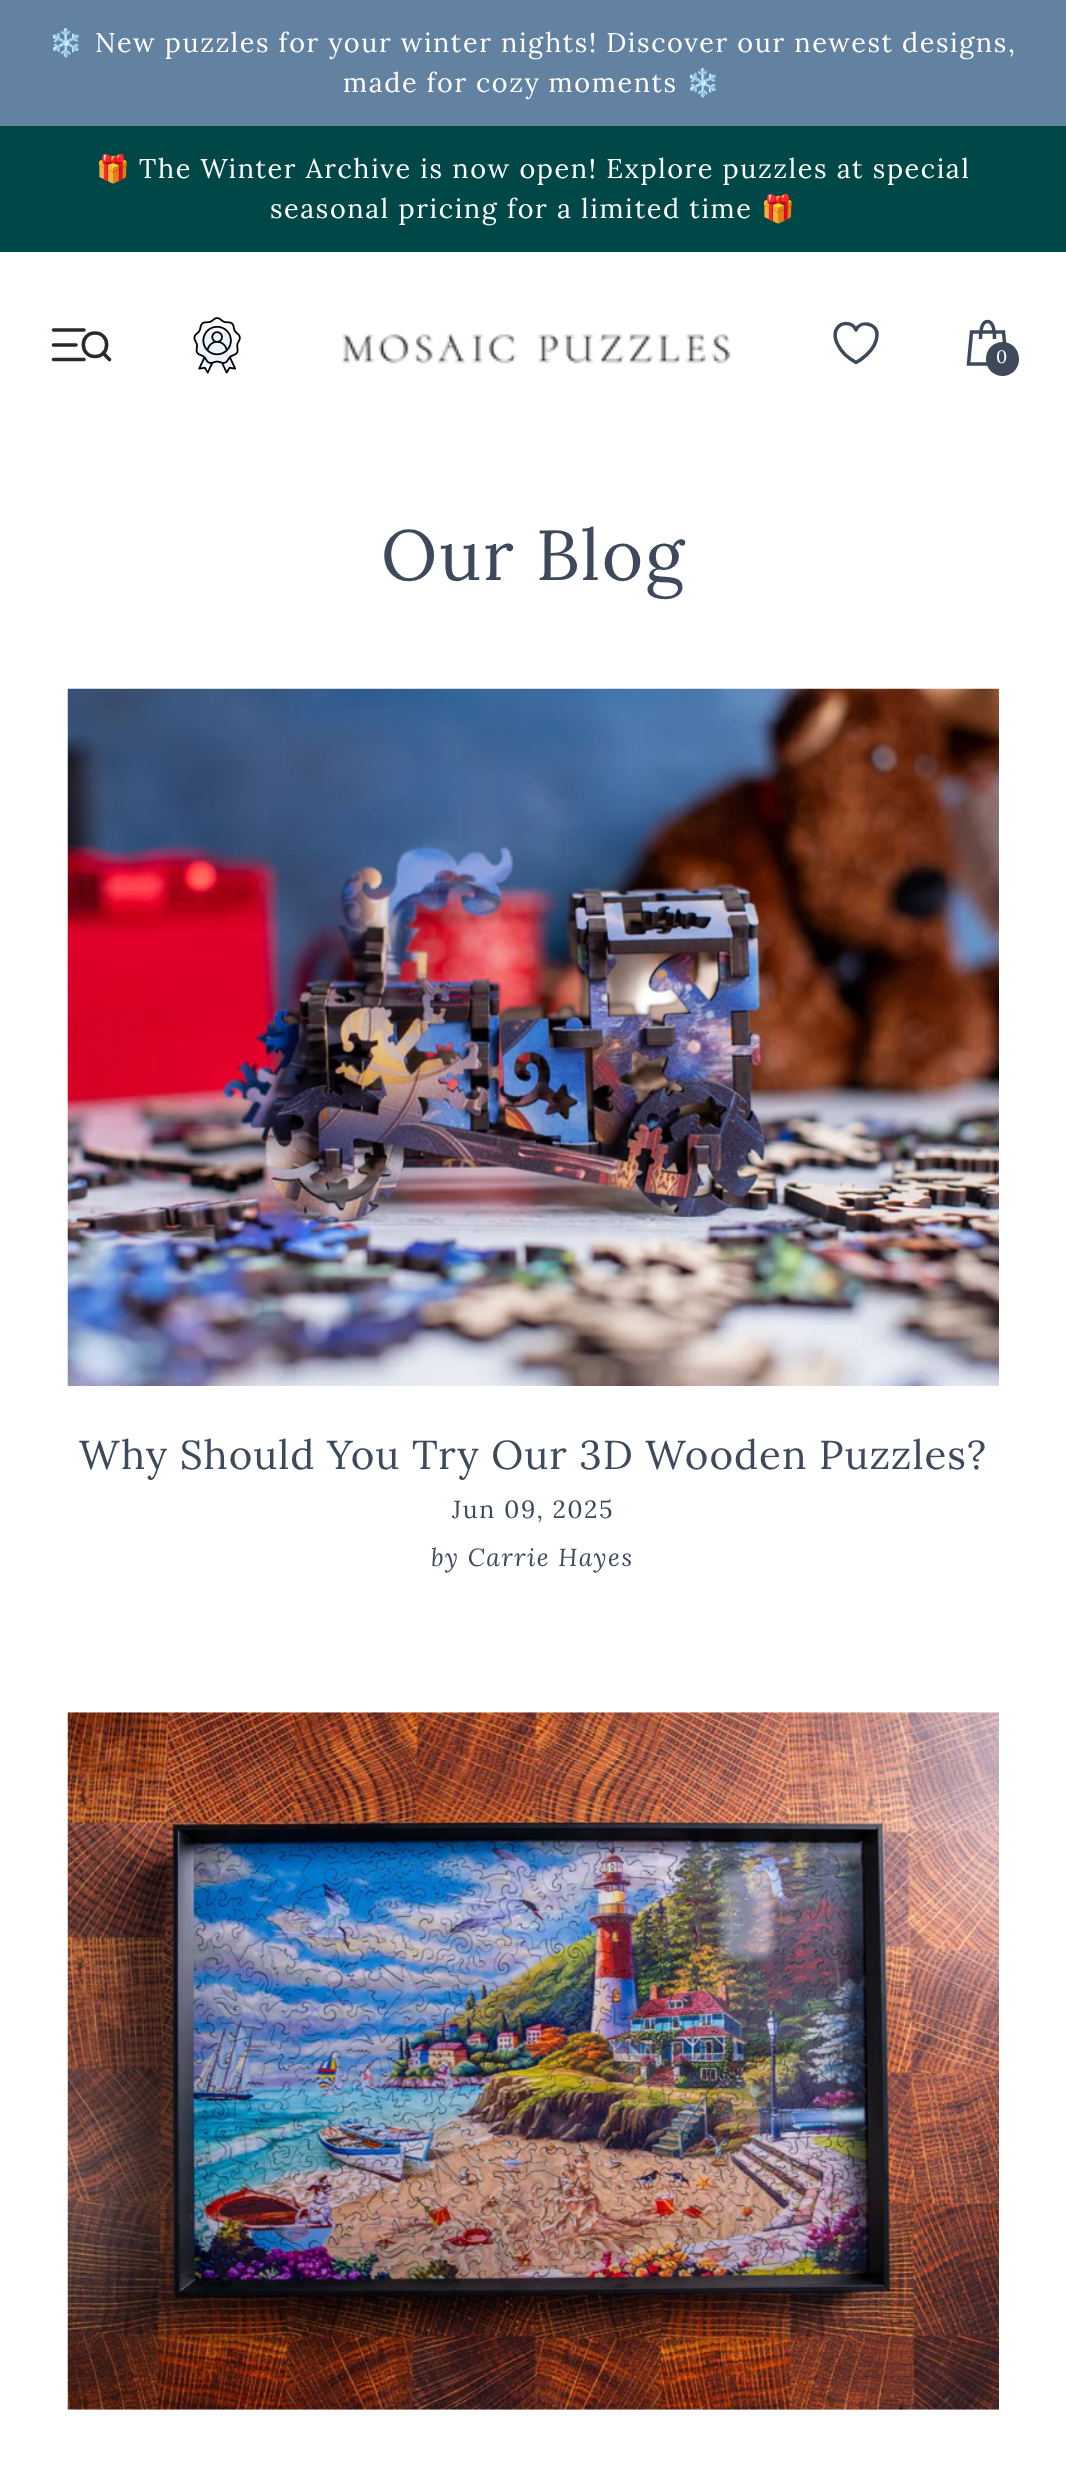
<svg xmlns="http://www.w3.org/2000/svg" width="1066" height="2468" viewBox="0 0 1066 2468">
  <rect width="100%" height="100%" fill="rgb(255,255,255)"/>
  <rect x="0" y="0" width="1066" height="126" fill="rgb(99,129,160)"/>
  <text x="49" y="52" font-family="Noto Color Emoji" font-size="27" letter-spacing="1.6" fill="rgb(255,255,255)">❄️</text>
  <g font-family="Lora" font-size="27" letter-spacing="1.6" fill="rgb(255,255,255)">
    <text x="95" y="52" word-spacing="-0.25">New puzzles for your winter nights! Discover our newest designs,</text>
    <text x="343" y="92" word-spacing="-0.5">made for cozy moments</text>
  </g>
  <text x="686" y="92" font-family="Noto Color Emoji" font-size="27" letter-spacing="1.6" fill="rgb(255,255,255)">❄️</text>
  <rect x="0" y="126" width="1066" height="126" fill="rgb(0,71,71)"/>
  <text x="96" y="178" font-family="Noto Color Emoji" font-size="27" letter-spacing="1.6" fill="rgb(255,255,255)">🎁</text>
  <g font-family="Lora" font-size="27" letter-spacing="1.6" fill="rgb(255,255,255)">
    <text x="139" y="178">The Winter Archive is now open! Explore puzzles at special</text>
    <text x="270" y="218">seasonal pricing for a limited time</text>
  </g>
  <text x="761" y="218" font-family="Noto Color Emoji" font-size="27" letter-spacing="1.6" fill="rgb(255,255,255)">🎁</text>
  <path d="M95 356.5C110.5 356.5 110.5 333 95 333C79.5 333 79.5 356.5 95 356.5ZM109.5 359.5L103 353" fill="none" stroke="rgb(45,41,38)" stroke-width="3.6" stroke-linecap="round" stroke-linejoin="round"/>
  <path d="M84 330H53.5M76 345H53.5M84 359.5H53.5" fill="none" stroke="rgb(45,41,38)" stroke-width="3.6" stroke-linecap="round"/>
  <circle cx="216" cy="349" r="18" fill="rgb(235,243,254)"/>
  <image x="193" y="317" width="48" height="57" href="pic1.png"/>
  <image x="341" y="333" width="390" height="31" href="pic2.png"/>
  <path d="M877 334.5C877 323 860.5 320 856 330C850 316.5 826.5 325 838.5 346C842 353 849 358.5 856 362.5C856 362.5 877 351.5 877 334.5Z" fill="none" stroke="rgb(62,74,91)" stroke-width="3.5" stroke-linecap="round" stroke-linejoin="round"/>
  <path d="M980.5 339C980.5 325 983.5 321.5 987.5 321.5C991.5 321.5 994.5 325 994.5 339M971.5 332H1003.5L1006.5 364H968.5Z" fill="none" stroke="rgb(62,74,91)" stroke-width="3.5"/>
  <rect x="986" y="342" width="33" height="34" rx="16.5" fill="rgb(62,74,91)"/>
  <text x="996" y="363" font-family="Lora" font-size="18" letter-spacing="-1" fill="rgb(255,255,255)">0</text>
  <text x="381" y="580" font-family="Lora" font-size="70.75" letter-spacing="1.75" fill="rgb(62,74,91)">Our Blog</text>
  <image x="67" y="688" width="932" height="698" href="pic3.png"/>
  <text x="79" y="1469" font-family="Lora" font-size="40.3" letter-spacing="1" fill="rgb(62,74,91)">Why Should You Try Our 3D Wooden Puzzles?</text>
  <text x="452" y="1518" font-family="Lora" font-size="24.75" letter-spacing="1.6" fill="rgb(62,74,91)">Jun 09, 2025</text>
  <text x="431" y="1566" font-family="Lora" font-size="24.75" font-style="italic" letter-spacing="1.6" fill="rgb(62,74,91)">by Carrie Hayes</text>
  <image x="67" y="1712" width="932" height="698" href="pic4.png"/>
</svg>
